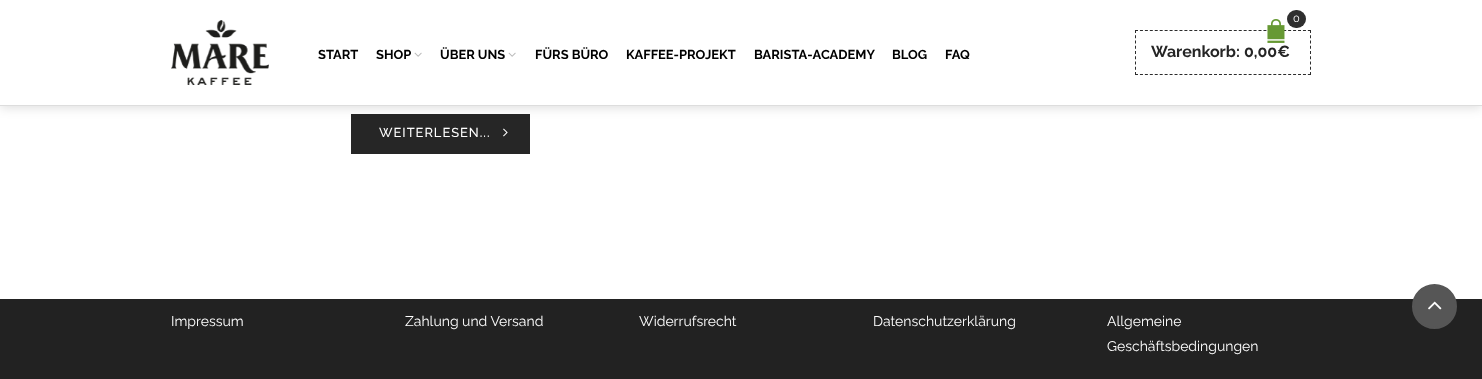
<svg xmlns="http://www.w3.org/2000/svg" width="1482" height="379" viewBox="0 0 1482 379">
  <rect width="100%" height="100%" fill="rgb(255,255,255)"/>
  <rect x="351" y="114" width="179" height="40" fill="rgb(38,38,38)"/>
  <rect x="0" y="1" width="1482" height="106" fill="rgba(0,0,0,0.15)" filter="blur(6px)"/>
  <rect x="0" y="0" width="1482" height="105" fill="rgb(255,255,255)"/>
  <rect x="0" y="105" width="1482" height="1" fill="rgb(221,221,221)"/>
  <image x="171" y="20" width="98" height="65" href="pic1.png"/>
  <g font-family="Raleway" font-size="12.9" font-weight="bold" fill="rgb(0,0,0)">
    <text x="318" y="59">START</text>
    <text x="376" y="59">SHOP</text>
  </g>
  <image x="414" y="52" width="8" height="5" href="pic2.png"/>
  <text x="440" y="59" font-family="Raleway" font-size="12.9" font-weight="bold" fill="rgb(0,0,0)">ÜBER UNS</text>
  <image x="508" y="52" width="8" height="5" href="pic2.png"/>
  <g font-family="Raleway" font-size="12.9" font-weight="bold" fill="rgb(0,0,0)">
    <text x="535" y="59">FÜRS BÜRO</text>
    <text x="626" y="59">KAFFEE-PROJEKT</text>
    <text x="754" y="59">BARISTA-ACADEMY</text>
    <text x="892" y="59">BLOG</text>
    <text x="945" y="59">FAQ</text>
  </g>
  <path d="M1135 30.5H1311" fill="none" stroke="rgb(44,44,44)" stroke-dasharray="3 1.94"/>
  <path d="M1310.5 30V75" fill="none" stroke="rgb(44,44,44)" stroke-dasharray="3 2.25"/>
  <path d="M1135 74.5H1311" fill="none" stroke="rgb(44,44,44)" stroke-dasharray="3 1.94"/>
  <path d="M1135.5 30V75" fill="none" stroke="rgb(44,44,44)" stroke-dasharray="3 2.25"/>
  <image x="1267" y="19" width="18" height="24" href="pic3.png"/>
  <rect x="1287" y="10" width="19" height="18" rx="9" fill="rgb(47,47,47)"/>
  <text x="1293" y="22" font-family="Raleway" font-size="11" fill="rgb(255,255,255)">0</text>
  <g font-family="Raleway" font-size="16" font-weight="bold" fill="rgb(37,37,37)">
    <text x="1151" y="57">Warenkorb:</text>
    <text x="1244" y="57">0,00€</text>
  </g>
  <text x="379" y="137" font-family="Raleway" font-size="12.9" font-weight="500" letter-spacing="1" fill="rgb(255,255,255)">WEITERLESEN...</text>
  <image x="503" y="128" width="5" height="9" href="pic4.png"/>
  <rect x="0" y="299" width="1482" height="80" fill="rgb(34,34,34)"/>
  <g font-family="Raleway" font-size="14" fill="rgb(255,255,255)">
    <text x="171" y="326">Impressum</text>
    <text x="405" y="326">Zahlung und Versand</text>
    <text x="639" y="326">Widerrufsrecht</text>
    <text x="873" y="326">Datenschutzerklärung</text>
    <text>
      <tspan x="1107" y="326">Allgemeine</tspan>
      <tspan x="1107" y="351">Geschäftsbedingungen</tspan>
    </text>
  </g>
  <circle cx="1434.5" cy="306.5" r="21.5" fill="rgb(86,86,86)" stroke="rgb(86,86,86)" stroke-width="2"/>
  <image x="1428" y="301" width="14" height="9" href="pic5.png"/>
</svg>
